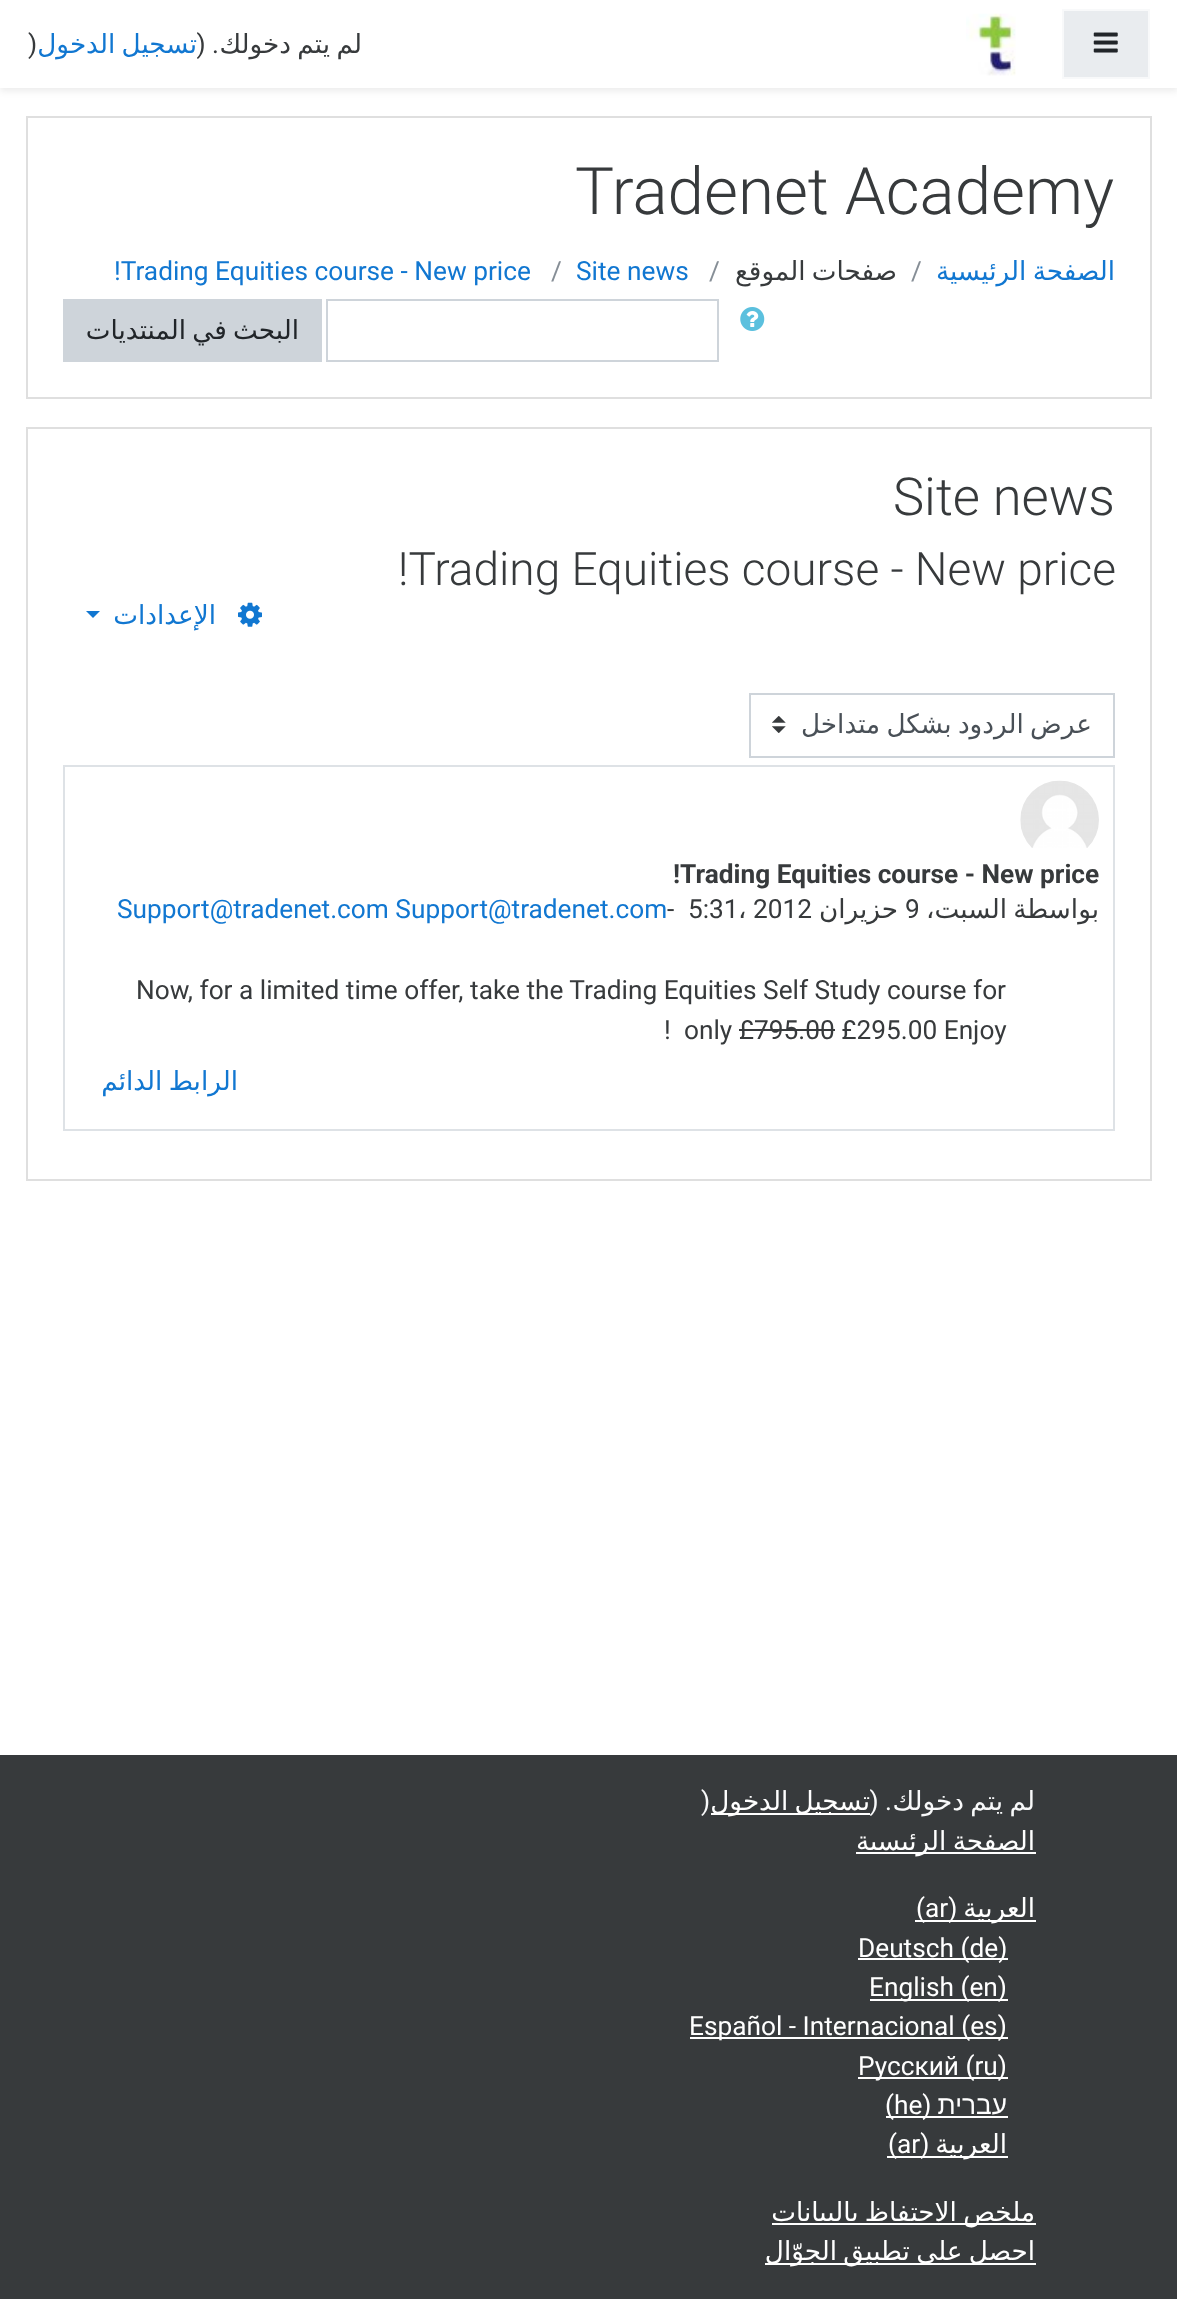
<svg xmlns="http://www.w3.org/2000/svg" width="1177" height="2299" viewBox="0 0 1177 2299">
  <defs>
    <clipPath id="clip1"><rect x="800" y="705" width="292" height="41"/></clipPath>
  </defs>
  <rect width="100%" height="100%" fill="rgb(255,255,255)"/>
  <rect x="0" y="4" width="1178" height="87" fill="rgba(0,0,0,0.08)" filter="blur(3.5px)"/>
  <rect x="0" y="0" width="1177" height="88" fill="rgb(255,255,255)"/>
  <text x="28" y="53" font-family="Roboto" font-size="26.25" fill="rgb(55,58,60)">)</text>
  <text x="197" y="53" word-spacing="-2" font-family="DejaVu Sans" font-size="26.25" direction="rtl" fill="rgb(17,119,209)">تسجيل الدخول</text>
  <text x="219" y="53" font-family="Roboto" font-size="26.25" direction="rtl" fill="rgb(55,58,60)">. (</text>
  <g font-family="DejaVu Sans" font-size="26.25" direction="rtl" fill="rgb(55,58,60)">
    <text x="291" y="53">دخولك</text>
    <text x="330" y="53">يتم</text>
    <text x="362" y="53">لم</text>
  </g>
  <image x="966" y="13" width="50" height="63" href="pic1.png"/>
  <rect x="1063" y="10" width="86" height="68" fill="rgb(233,236,239)" stroke="rgb(248,249,250)" stroke-width="2"/>
  <image x="1093" y="32" width="25" height="21" href="pic2.png"/>
  <rect x="27" y="117" width="1124" height="281" fill="none" stroke="rgb(223,223,223)" stroke-width="2"/>
  <text x="575" y="214" font-family="Roboto" font-size="65.5" font-weight="300" fill="rgb(55,58,60)">Tradenet Academy</text>
  <text x="114" y="280" font-family="Roboto" font-size="26.25" fill="rgb(17,119,209)">!Trading Equities course - New price</text>
  <text x="551" y="280" font-family="Roboto" font-size="26.25" fill="rgb(134,142,150)">/</text>
  <text x="576" y="280" font-family="Roboto" font-size="26.25" fill="rgb(17,119,209)">Site news</text>
  <text x="709" y="280" font-family="Roboto" font-size="26.25" fill="rgb(134,142,150)">/</text>
  <text x="897" y="280" word-spacing="-2" font-family="DejaVu Sans" font-size="26.25" direction="rtl" fill="rgb(55,58,60)">صفحات الموقع</text>
  <text x="911" y="280" font-family="Roboto" font-size="26.25" fill="rgb(134,142,150)">/</text>
  <text x="1115" y="280" word-spacing="-2" font-family="DejaVu Sans" font-size="26.25" direction="rtl" fill="rgb(17,119,209)">الصفحة الرئيسية</text>
  <rect x="63" y="299" width="259" height="63" fill="rgb(206,212,218)"/>
  <text x="299" y="339" word-spacing="-2" font-family="DejaVu Sans" font-size="26.25" direction="rtl" fill="rgb(33,37,41)">البحث في المنتديات</text>
  <rect x="327" y="300" width="391" height="61" fill="none" stroke="rgb(206,212,218)" stroke-width="2"/>
  <image x="740" y="307" width="25" height="24" href="pic3.png"/>
  <rect x="27" y="428" width="1124" height="752" fill="none" stroke="rgb(223,223,223)" stroke-width="2"/>
  <text x="893" y="515" font-family="Roboto" font-size="52.5" font-weight="300" fill="rgb(55,58,60)">Site news</text>
  <text x="398" y="585" font-family="Roboto" font-size="46" font-weight="300" fill="rgb(55,58,60)">!Trading Equities course - New price</text>
  <path d="M86 611H100L93 618Z" fill="rgb(17,119,209)"/>
  <text x="216" y="624" font-family="DejaVu Sans" font-size="26.25" direction="rtl" fill="rgb(17,119,209)">الإعدادات</text>
  <image x="238" y="602" width="24" height="25" href="pic4.png"/>
  <image x="772" y="716" width="14" height="17" href="pic5.png"/>
  <rect x="750" y="694" width="364" height="63" fill="none" stroke="rgb(206,212,218)" stroke-width="2"/>
  <g clip-path="url(#clip1)">
    <text x="1092" y="733" word-spacing="-2" font-family="DejaVu Sans" font-size="26.25" direction="rtl" fill="rgb(73,80,87)">عرض الردود بشكل متداخل</text>
  </g>
  <rect x="64" y="766" width="1050" height="364" fill="none" stroke="rgb(222,226,230)" stroke-width="2"/>
  <image x="1020" y="780" width="79" height="68" href="pic6.png"/>
  <text x="673" y="883" font-family="Roboto" font-size="26.25" font-weight="bold" fill="rgb(55,58,60)">!Trading Equities course - New price</text>
  <text x="117" y="918" font-family="Roboto" font-size="26.25" fill="rgb(17,119,209)">Support@tradenet.com Support@tradenet.com</text>
  <g font-family="Roboto" font-size="26.25" fill="rgb(55,58,60)">
    <text x="667" y="918">-</text>
    <text x="688" y="918">5:31</text>
    <text x="753" y="918">2012</text>
  </g>
  <text x="898" y="918" font-family="DejaVu Sans" font-size="26.25" direction="rtl" fill="rgb(55,58,60)">حزيران</text>
  <text x="905" y="918" font-family="Roboto" font-size="26.25" fill="rgb(55,58,60)">9</text>
  <g font-family="DejaVu Sans" font-size="26.25" direction="rtl" fill="rgb(55,58,60)">
    <text x="1007" y="918">السبت،</text>
    <text x="1099" y="918">بواسطة</text>
  </g>
  <text x="738" y="918" font-family="DejaVu Sans" font-size="26.25" fill="rgb(55,58,60)">،</text>
  <g font-family="Roboto" font-size="26.25" fill="rgb(55,58,60)">
    <text x="136" y="999">Now, for a limited time offer, take the Trading Equities Self Study course for</text>
    <text x="664" y="1039">!</text>
    <text x="684" y="1039">only £795.00 £295.00 Enjoy</text>
  </g>
  <rect x="739" y="1029" width="96" height="2" fill="rgb(55,58,60)"/>
  <text x="238" y="1090" word-spacing="-2" font-family="DejaVu Sans" font-size="26.25" direction="rtl" fill="rgb(17,119,209)">الرابط الدائم</text>
  <rect x="0" y="1755" width="1177" height="544" fill="rgb(55,58,60)"/>
  <text x="701" y="1810" font-family="Roboto" font-size="26.25" fill="rgb(248,249,250)">)</text>
  <rect x="711" y="1813" width="159" height="2" fill="rgb(255,255,255)"/>
  <text x="870" y="1810" word-spacing="-2" font-family="DejaVu Sans" font-size="26.25" direction="rtl" fill="rgb(255,255,255)">تسجيل الدخول</text>
  <text x="892" y="1810" font-family="Roboto" font-size="26.25" direction="rtl" fill="rgb(248,249,250)">. (</text>
  <g font-family="DejaVu Sans" font-size="26.25" direction="rtl" fill="rgb(248,249,250)">
    <text x="964" y="1810">دخولك</text>
    <text x="1003" y="1810">يتم</text>
    <text x="1035" y="1810">لم</text>
  </g>
  <rect x="856" y="1852" width="180" height="2" fill="rgb(255,255,255)"/>
  <text x="1035" y="1850" word-spacing="-2" font-family="DejaVu Sans" font-size="26.25" direction="rtl" fill="rgb(255,255,255)">الصفحة الرئيسية</text>
  <rect x="915" y="1920" width="121" height="2" fill="rgb(255,255,255)"/>
  <text x="916" y="1917" font-family="Roboto" font-size="26.25" fill="rgb(255,255,255)">(ar)</text>
  <text x="1035" y="1917" font-family="DejaVu Sans" font-size="26.25" direction="rtl" fill="rgb(255,255,255)">العربية</text>
  <rect x="858" y="1958" width="150" height="2" fill="rgb(255,255,255)"/>
  <text x="858" y="1957" font-family="Roboto" font-size="26.25" fill="rgb(255,255,255)">Deutsch (de)</text>
  <rect x="870" y="1999" width="138" height="2" fill="rgb(255,255,255)"/>
  <text x="869" y="1996" font-family="Roboto" font-size="26.25" fill="rgb(255,255,255)">English (en)</text>
  <rect x="690" y="2037" width="318" height="2" fill="rgb(255,255,255)"/>
  <text x="689" y="2035" font-family="Roboto" font-size="26.25" fill="rgb(255,255,255)">Español - Internacional (es)</text>
  <rect x="858" y="2077" width="150" height="2" fill="rgb(255,255,255)"/>
  <text x="858" y="2075" font-family="Roboto" font-size="26.25" fill="rgb(255,255,255)">Русский (ru)</text>
  <rect x="886" y="2116" width="122" height="2" fill="rgb(255,255,255)"/>
  <text x="885" y="2114" font-family="Roboto" font-size="26.25" fill="rgb(255,255,255)">(he)</text>
  <text x="1007" y="2114" font-family="Liberation Sans" font-size="26.25" direction="rtl" fill="rgb(255,255,255)">עברית</text>
  <rect x="887" y="2156" width="121" height="2" fill="rgb(255,255,255)"/>
  <text x="888" y="2153" font-family="Roboto" font-size="26.25" fill="rgb(255,255,255)">(ar)</text>
  <text x="1007" y="2153" font-family="DejaVu Sans" font-size="26.25" direction="rtl" fill="rgb(255,255,255)">العربية</text>
  <rect x="772" y="2223" width="264" height="2" fill="rgb(255,255,255)"/>
  <text x="1035" y="2221" word-spacing="-2" font-family="DejaVu Sans" font-size="26.25" direction="rtl" fill="rgb(255,255,255)">ملخص الاحتفاظ بالبيانات</text>
  <rect x="765" y="2263" width="271" height="2" fill="rgb(255,255,255)"/>
  <text x="1035" y="2260" word-spacing="-2" font-family="DejaVu Sans" font-size="26.25" direction="rtl" fill="rgb(255,255,255)">احصل على تطبيق الجوّال</text>
</svg>
